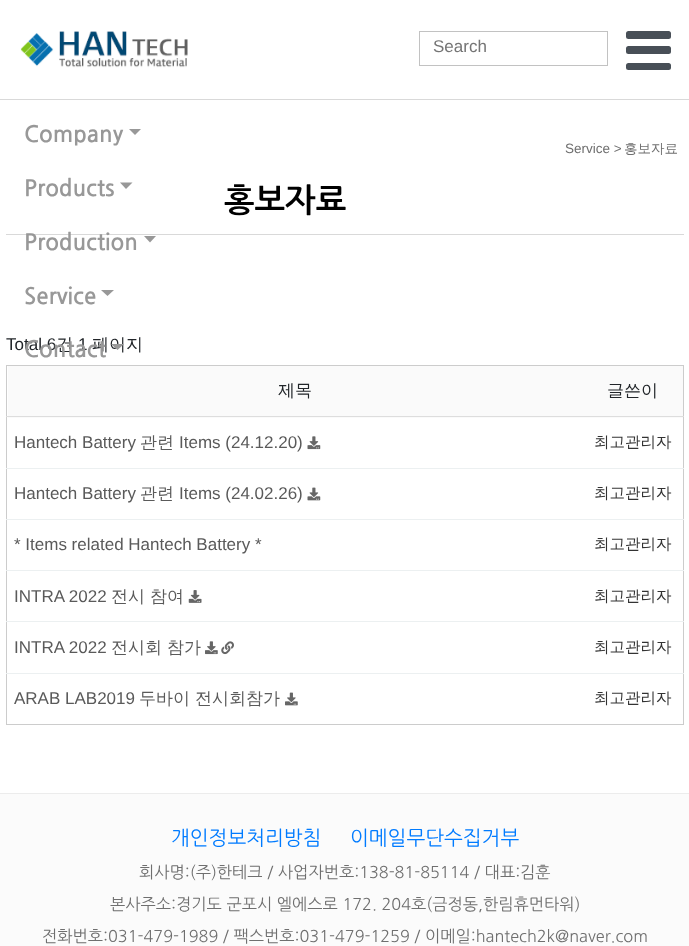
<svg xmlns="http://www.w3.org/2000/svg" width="689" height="946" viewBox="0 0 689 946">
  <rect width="100%" height="100%" fill="rgb(255,255,255)"/>
  <rect x="0" y="99" width="689" height="1" fill="rgb(217,217,217)"/>
  <image x="20" y="31" width="168" height="37" href="pic1.png"/>
  <rect x="419.5" y="31.5" width="188" height="34" fill="none" stroke="rgb(194,194,194)"/>
  <text x="433" y="52" font-family="Liberation Sans" font-size="17" fill="rgb(117,117,117)">Search</text>
  <rect x="626" y="31" width="45" height="8" rx="2.5" fill="rgb(72,79,87)"/>
  <rect x="626" y="46" width="45" height="8" rx="2.5" fill="rgb(72,79,87)"/>
  <rect x="626" y="63" width="45" height="7" rx="2.5" fill="rgb(72,79,87)"/>
  <text x="24" y="141" font-family="NanumGothic" font-size="22.5" font-weight="bold" fill="rgb(152,152,152)">Company</text>
  <path d="M129 129H141L135 135Z" fill="rgb(152,152,152)"/>
  <text x="24" y="195" font-family="NanumGothic" font-size="22.5" font-weight="bold" fill="rgb(152,152,152)">Products</text>
  <path d="M120 182.5H132.5L126 189Z" fill="rgb(152,152,152)"/>
  <rect x="6" y="234" width="678" height="1" fill="rgb(217,217,217)"/>
  <text x="24" y="249" font-family="NanumGothic" font-size="22.5" font-weight="bold" fill="rgb(152,152,152)">Production</text>
  <path d="M144 236H156L150 242.5Z" fill="rgb(152,152,152)"/>
  <text x="24" y="303" font-family="NanumGothic" font-size="22.5" font-weight="bold" fill="rgb(152,152,152)">Service</text>
  <path d="M101 290H114L107.5 296Z" fill="rgb(152,152,152)"/>
  <text x="6" y="350" font-family="Liberation Sans" font-size="17" fill="rgb(33,37,41)">Total 6</text>
  <text x="56" y="350" font-family="WenQuanYi Zen Hei" font-size="17" font-weight="500" fill="rgb(33,37,41)">건</text>
  <text x="78" y="350" font-family="Liberation Sans" font-size="17" fill="rgb(33,37,41)">1</text>
  <text x="92" y="350" font-family="WenQuanYi Zen Hei" font-size="17" font-weight="500" fill="rgb(33,37,41)">페이지</text>
  <text x="24" y="356" font-family="NanumGothic" font-size="22.5" font-weight="bold" fill="rgb(152,152,152)">Contact</text>
  <path d="M111 344H124L117.5 350Z" fill="rgb(152,152,152)"/>
  <text x="565" y="153" font-family="Liberation Sans" font-size="13.5" fill="rgb(111,111,111)">Service &gt;</text>
  <text x="624" y="153" font-family="WenQuanYi Zen Hei" font-size="13.5" font-weight="500" fill="rgb(111,111,111)">홍보자료</text>
  <text x="224" y="210" font-family="NanumGothic" font-size="32.5" font-weight="bold" fill="rgb(0,0,0)">홍보자료</text>
  <rect x="6" y="365" width="678" height="1" fill="rgb(204,204,204)"/>
  <rect x="683" y="365" width="1" height="360" fill="rgb(204,204,204)"/>
  <rect x="6" y="724" width="678" height="1" fill="rgb(204,204,204)"/>
  <rect x="6" y="365" width="1" height="360" fill="rgb(204,204,204)"/>
  <rect x="8" y="366" width="675" height="52" fill="rgb(250,250,250)"/>
  <text x="278" y="396" font-family="WenQuanYi Zen Hei" font-size="17" font-weight="500" fill="rgb(33,37,41)">제목</text>
  <rect x="6" y="416" width="678" height="1" fill="rgb(221,221,221)"/>
  <text x="607" y="396" font-family="WenQuanYi Zen Hei" font-size="17" font-weight="500" fill="rgb(33,37,41)">글쓴이</text>
  <text x="14" y="448" font-family="Liberation Sans" font-size="17" fill="rgb(90,90,90)">Hantech Battery</text>
  <text x="140" y="448" font-family="WenQuanYi Zen Hei" font-size="17" font-weight="500" fill="rgb(90,90,90)">관련</text>
  <text x="179" y="448" font-family="Liberation Sans" font-size="17" fill="rgb(90,90,90)">Items (24.12.20)</text>
  <image x="307" y="436" width="14" height="14" href="pic2.png"/>
  <text x="594" y="447" font-family="WenQuanYi Zen Hei" font-size="15.5" font-weight="500" fill="rgb(51,51,51)">최고관리자</text>
  <text x="14" y="499" font-family="Liberation Sans" font-size="17" fill="rgb(90,90,90)">Hantech Battery</text>
  <text x="140" y="499" font-family="WenQuanYi Zen Hei" font-size="17" font-weight="500" fill="rgb(90,90,90)">관련</text>
  <text x="179" y="499" font-family="Liberation Sans" font-size="17" fill="rgb(90,90,90)">Items (24.02.26)</text>
  <image x="307" y="487" width="14" height="14" href="pic3.png"/>
  <rect x="6" y="468" width="678" height="1" fill="rgb(236,240,241)"/>
  <text x="594" y="498" font-family="WenQuanYi Zen Hei" font-size="15.5" font-weight="500" fill="rgb(51,51,51)">최고관리자</text>
  <text x="14" y="550" font-family="Liberation Sans" font-size="17" fill="rgb(90,90,90)">* Items related Hantech Battery *</text>
  <rect x="6" y="519" width="678" height="1" fill="rgb(236,240,241)"/>
  <text x="594" y="549" font-family="WenQuanYi Zen Hei" font-size="15.5" font-weight="500" fill="rgb(51,51,51)">최고관리자</text>
  <text x="14" y="602" font-family="Liberation Sans" font-size="17" fill="rgb(90,90,90)">INTRA 2022</text>
  <g font-family="WenQuanYi Zen Hei" font-size="17" font-weight="500" fill="rgb(90,90,90)">
    <text x="111" y="602">전시</text>
    <text x="150" y="602">참여</text>
  </g>
  <image x="188" y="590" width="14" height="13" href="pic4.png"/>
  <rect x="6" y="570" width="678" height="1" fill="rgb(236,240,241)"/>
  <text x="594" y="601" font-family="WenQuanYi Zen Hei" font-size="15.5" font-weight="500" fill="rgb(51,51,51)">최고관리자</text>
  <text x="14" y="653" font-family="Liberation Sans" font-size="17" fill="rgb(90,90,90)">INTRA 2022</text>
  <g font-family="WenQuanYi Zen Hei" font-size="17" font-weight="500" fill="rgb(90,90,90)">
    <text x="111" y="653">전시회</text>
    <text x="167" y="653">참가</text>
  </g>
  <image x="205" y="641" width="13" height="14" href="pic5.png"/>
  <image x="221" y="641" width="13" height="14" href="pic6.png"/>
  <rect x="6" y="621" width="678" height="1" fill="rgb(236,240,241)"/>
  <text x="594" y="652" font-family="WenQuanYi Zen Hei" font-size="15.5" font-weight="500" fill="rgb(51,51,51)">최고관리자</text>
  <text x="14" y="704" font-family="Liberation Sans" font-size="17" fill="rgb(90,90,90)">ARAB LAB2019</text>
  <g font-family="WenQuanYi Zen Hei" font-size="17" font-weight="500" fill="rgb(90,90,90)">
    <text x="139" y="704">두바이</text>
    <text x="195" y="704">전시회참가</text>
  </g>
  <image x="285" y="692" width="13" height="14" href="pic7.png"/>
  <rect x="6" y="673" width="678" height="1" fill="rgb(236,240,241)"/>
  <text x="594" y="703" font-family="WenQuanYi Zen Hei" font-size="15.5" font-weight="500" fill="rgb(51,51,51)">최고관리자</text>
  <rect x="0" y="794" width="689" height="152" fill="rgb(251,251,251)"/>
  <rect x="0" y="793" width="689" height="1" fill="rgb(236,236,236)"/>
  <g font-family="NanumGothic" font-size="20" fill="rgb(0,123,255)">
    <text x="171" y="845">개인정보처리방침</text>
    <text x="350" y="845">이메일무단수집거부</text>
  </g>
  <g font-family="NanumGothic" font-size="16.25" fill="rgb(111,111,111)">
    <text x="139" y="878">회사명:(주)한테크 / 사업자번호:138-81-85114 / 대표:김훈</text>
    <text x="110" y="910">본사주소:경기도 군포시 엘에스로 172. 204호(금정동,한림휴먼타워)</text>
    <text x="42" y="942">전화번호:031-479-1989 / 팩스번호:031-479-1259 / 이메일:hantech2k@naver.com</text>
  </g>
</svg>
